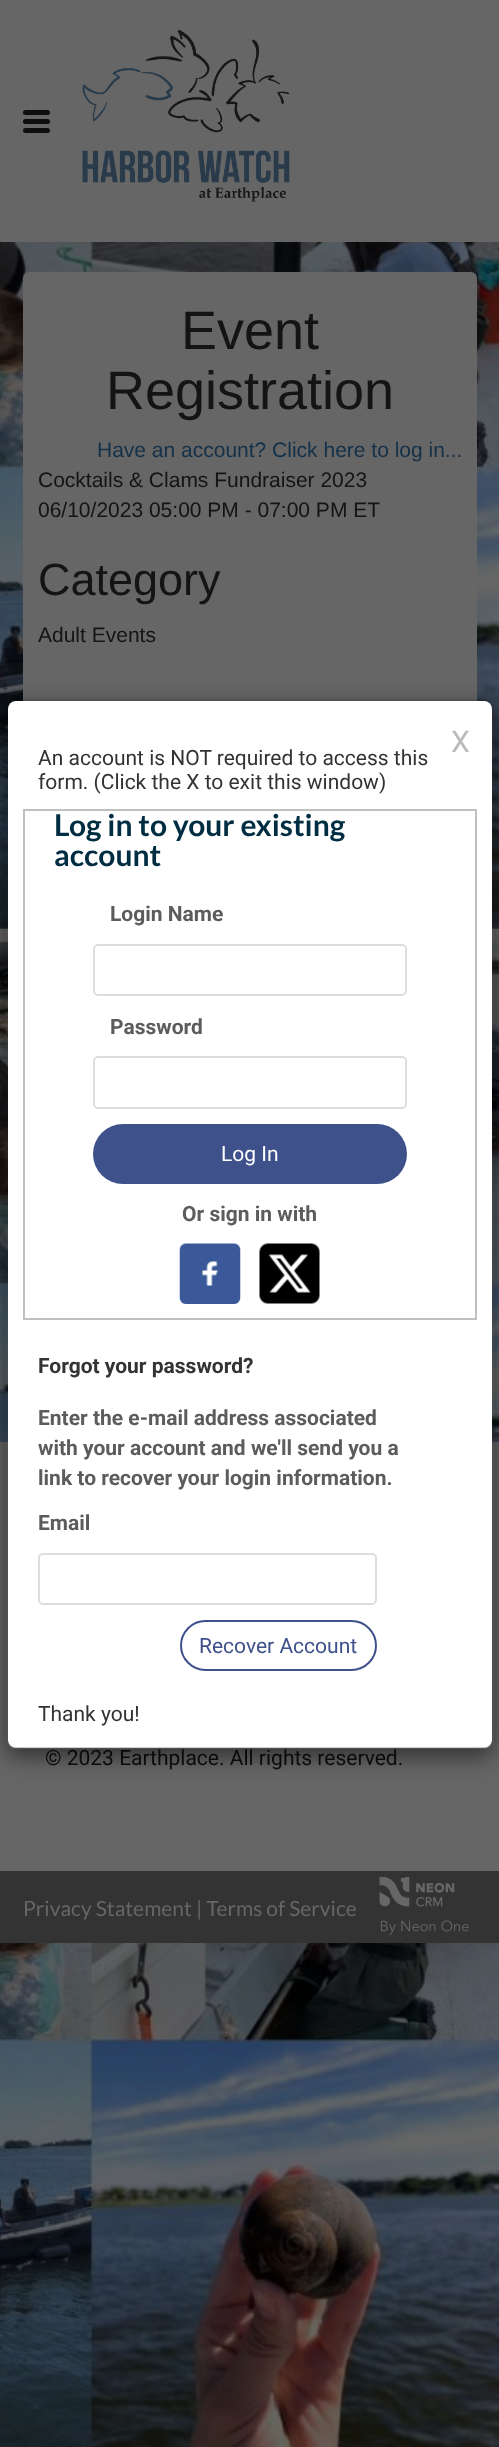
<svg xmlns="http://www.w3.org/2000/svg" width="499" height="2447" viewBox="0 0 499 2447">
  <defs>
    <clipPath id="clip1"><path d="M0 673H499V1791H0ZM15 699H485C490 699 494 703 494 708V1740C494 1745 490 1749 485 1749H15C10 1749 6 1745 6 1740V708C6 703 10 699 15 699Z" clip-rule="evenodd"/></clipPath>
  </defs>
  <rect width="100%" height="100%" fill="rgb(255,255,255)"/>
  <image x="0" y="242" width="499" height="2205" href="pic1.png"/>
  <rect x="0" y="0" width="499" height="242" fill="rgb(102,102,102)"/>
  <rect x="23" y="110" width="27" height="5" rx="2.5" fill="rgb(14,14,14)"/>
  <rect x="23" y="119" width="27" height="5" rx="2.5" fill="rgb(14,14,14)"/>
  <rect x="23" y="128" width="27" height="5" rx="2.5" fill="rgb(14,14,14)"/>
  <image x="82" y="30" width="208" height="172" href="pic2.png"/>
  <rect x="23" y="272" width="454" height="1033" rx="6" fill="rgb(102,102,102)"/>
  <g font-family="Liberation Sans" font-size="54" fill="rgb(20,20,20)">
    <text x="181" y="349">Event</text>
    <text x="106" y="409">Registration</text>
  </g>
  <text x="97" y="457" font-family="Liberation Sans" font-size="21" fill="rgb(20,49,73)">Have an account? Click here to log in...</text>
  <g font-family="Liberation Sans" font-size="21" fill="rgb(20,20,20)">
    <text>
      <tspan x="38" y="487">Cocktails &amp; Clams Fundraiser 2023</tspan>
      <tspan x="38" y="517">06/10/2023 05:00 PM - 07:00 PM ET</tspan>
    </text>
  </g>
  <text x="38" y="595" font-family="Liberation Sans" font-size="45" fill="rgb(20,20,20)">Category</text>
  <text x="38" y="642" font-family="Liberation Sans" font-size="21" fill="rgb(20,20,20)">Adult Events</text>
  <rect x="0" y="1442" width="499" height="429" fill="rgb(102,102,102)"/>
  <text x="45" y="1765" font-family="Roboto" font-size="21" fill="rgb(14,14,14)">© 2023 Earthplace. All rights reserved.</text>
  <rect x="0" y="1871" width="499" height="72" fill="rgb(51,51,51)"/>
  <text x="23" y="1916" font-family="Lato" font-size="21" fill="rgb(102,102,102)">Privacy Statement | Terms of Service</text>
  <image x="379" y="1877" width="76" height="30" href="pic3.png"/>
  <image x="380" y="1920" width="89" height="15" href="pic4.png"/>
  <g clip-path="url(#clip1)">
    <rect x="6" y="707" width="488" height="1050" rx="9" fill="rgba(0,0,0,0.5)" filter="blur(11px)"/>
  </g>
  <rect x="8" y="701" width="484" height="1047" rx="8" fill="rgb(255,255,255)"/>
  <rect x="7" y="700" width="486" height="1048" rx="8" fill="none" stroke="rgba(0,0,0,0.2)" stroke-width="2"/>
  <text x="451" y="752" font-family="Roboto" font-size="30" fill="rgb(187,187,187)">X</text>
  <g font-family="Roboto" font-size="21" fill="rgb(51,51,51)">
    <text>
      <tspan x="38" y="765">An account is NOT required to access this</tspan>
      <tspan x="38" y="789">form. (Click the X to exit this window)</tspan>
    </text>
  </g>
  <rect x="24" y="810" width="452" height="509" fill="none" stroke="rgb(192,192,192)" stroke-width="2"/>
  <g font-family="Lato" font-size="30" font-weight="bold" fill="rgb(0,45,65)">
    <text>
      <tspan x="54" y="836">Log in to your existing</tspan>
      <tspan x="54" y="866">account</tspan>
    </text>
  </g>
  <text x="110" y="921" font-family="Roboto" font-size="21" font-weight="bold" fill="rgb(92,92,92)">Login Name</text>
  <rect x="94" y="945" width="312" height="50" rx="4" fill="none" stroke="rgb(221,221,221)" stroke-width="2"/>
  <text x="110" y="1034" font-family="Roboto" font-size="21" font-weight="bold" fill="rgb(92,92,92)">Password</text>
  <rect x="94" y="1057" width="312" height="51" rx="4" fill="none" stroke="rgb(221,221,221)" stroke-width="2"/>
  <rect x="93" y="1124" width="314" height="60" rx="30" fill="rgb(62,81,139)"/>
  <text x="221" y="1161" font-family="Roboto" font-size="21" fill="rgb(255,255,255)">Log In</text>
  <text x="182" y="1221" font-family="Roboto" font-size="21" font-weight="bold" fill="rgb(92,92,92)">Or sign in with</text>
  <rect x="180" y="1244" width="60" height="60" rx="6" fill="rgb(59,89,152)"/>
  <image x="179" y="1243" width="62" height="61" href="pic5.png"/>
  <image x="259" y="1243" width="61" height="61" href="pic6.png"/>
  <text x="38" y="1373" font-family="Roboto" font-size="21" font-weight="bold" fill="rgb(51,51,51)">Forgot your password?</text>
  <g font-family="Roboto" font-size="21" font-weight="bold" fill="rgb(92,92,92)">
    <text>
      <tspan x="38" y="1425">Enter the e-mail address associated</tspan>
      <tspan x="38" y="1455">with your account and we'll send you a</tspan>
      <tspan x="38" y="1485">link to recover your login information.</tspan>
    </text>
    <text x="38" y="1530">Email</text>
  </g>
  <rect x="39" y="1554" width="337" height="50" rx="4" fill="none" stroke="rgb(221,221,221)" stroke-width="2"/>
  <rect x="181" y="1621" width="195" height="49" rx="24.5" fill="none" stroke="rgb(62,81,139)" stroke-width="2"/>
  <text x="199" y="1653" font-family="Roboto" font-size="21" fill="rgb(62,81,139)">Recover Account</text>
  <text x="38" y="1721" font-family="Roboto" font-size="21" fill="rgb(51,51,51)">Thank you!</text>
</svg>
